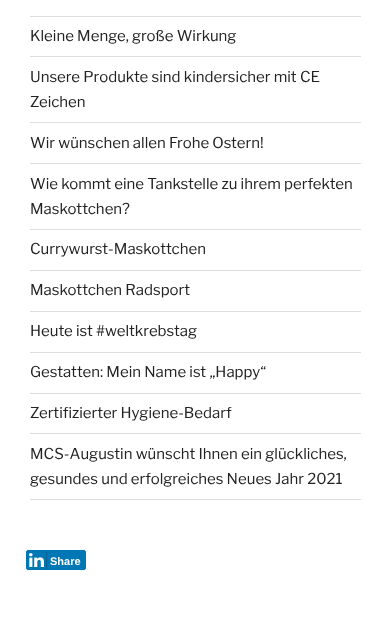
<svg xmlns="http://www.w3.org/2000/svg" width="391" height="617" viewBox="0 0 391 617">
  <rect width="100%" height="100%" fill="rgb(255,255,255)"/>
  <rect x="30" y="16" width="331" height="1" fill="rgb(221,221,221)"/>
  <rect x="30" y="56" width="331" height="1" fill="rgb(221,221,221)"/>
  <text x="30" y="41" font-family="Libre Franklin" font-size="15" font-weight="100" fill="rgb(34,34,34)">Kleine Menge, große Wirkung</text>
  <rect x="30" y="122" width="331" height="1" fill="rgb(221,221,221)"/>
  <g font-family="Libre Franklin" font-size="15" font-weight="100" fill="rgb(34,34,34)">
    <text>
      <tspan x="30" y="82">Unsere Produkte sind kindersicher mit CE</tspan>
      <tspan x="30" y="107">Zeichen</tspan>
    </text>
  </g>
  <rect x="30" y="163" width="331" height="1" fill="rgb(221,221,221)"/>
  <text x="30" y="148" font-family="Libre Franklin" font-size="15" font-weight="100" fill="rgb(34,34,34)">Wir wünschen allen Frohe Ostern!</text>
  <rect x="30" y="229" width="331" height="1" fill="rgb(221,221,221)"/>
  <g font-family="Libre Franklin" font-size="15" font-weight="100" fill="rgb(34,34,34)">
    <text>
      <tspan x="30" y="189">Wie kommt eine Tankstelle zu ihrem perfekten</tspan>
      <tspan x="30" y="214">Maskottchen?</tspan>
    </text>
  </g>
  <rect x="30" y="270" width="331" height="1" fill="rgb(221,221,221)"/>
  <text x="30" y="254" font-family="Libre Franklin" font-size="15" font-weight="100" fill="rgb(34,34,34)">Currywurst-Maskottchen</text>
  <rect x="30" y="311" width="331" height="1" fill="rgb(221,221,221)"/>
  <text x="30" y="295" font-family="Libre Franklin" font-size="15" font-weight="100" fill="rgb(34,34,34)">Maskottchen Radsport</text>
  <rect x="30" y="352" width="331" height="1" fill="rgb(221,221,221)"/>
  <text x="30" y="336" font-family="Libre Franklin" font-size="15" font-weight="100" fill="rgb(34,34,34)">Heute ist #weltkrebstag</text>
  <rect x="30" y="393" width="331" height="1" fill="rgb(221,221,221)"/>
  <text x="30" y="377" font-family="Libre Franklin" font-size="15" font-weight="100" fill="rgb(34,34,34)">Gestatten: Mein Name ist „Happy“</text>
  <rect x="30" y="433" width="331" height="1" fill="rgb(221,221,221)"/>
  <text x="30" y="418" font-family="Libre Franklin" font-size="15" font-weight="100" fill="rgb(34,34,34)">Zertifizierter Hygiene-Bedarf</text>
  <rect x="30" y="499" width="331" height="1" fill="rgb(221,221,221)"/>
  <g font-family="Libre Franklin" font-size="15" font-weight="100" fill="rgb(34,34,34)">
    <text>
      <tspan x="30" y="459">MCS-Augustin wünscht Ihnen ein glückliches,</tspan>
      <tspan x="30" y="484">gesundes und erfolgreiches Neues Jahr 2021</tspan>
    </text>
  </g>
  <rect x="26.5" y="550.5" width="59" height="19" rx="1.5" fill="rgb(0,119,181)" stroke="rgb(0,119,181)"/>
  <rect x="46" y="552" width="1" height="17" fill="rgb(6,96,148)"/>
  <image x="29" y="553" width="15" height="14" href="pic1.png"/>
  <text x="50" y="565" font-family="Liberation Sans" font-size="11" font-weight="bold" fill="rgb(255,255,255)">Share</text>
</svg>
